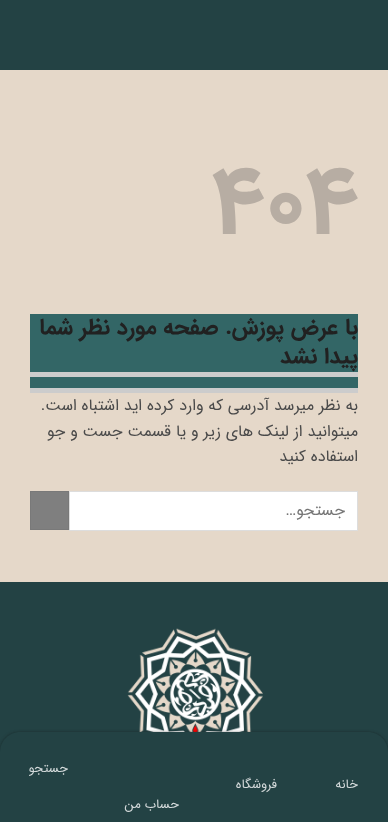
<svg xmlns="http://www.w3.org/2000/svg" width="388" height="822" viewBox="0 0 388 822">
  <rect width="100%" height="100%" fill="rgb(229,216,201)"/>
  <rect x="0" y="0" width="388" height="70" fill="rgb(35,66,68)"/>
  <text x="212" y="231" font-family="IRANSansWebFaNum" font-size="96" font-weight="bold" fill="rgb(183,173,163)">404</text>
  <rect x="30" y="314" width="328" height="74" fill="rgb(51,102,102)"/>
  <rect x="30" y="388" width="328" height="5" fill="rgb(204,204,204)"/>
  <rect x="30" y="372" width="328" height="5" fill="rgb(204,204,204)"/>
  <g font-family="IRANSansWebFaNum" font-size="22.4" font-weight="bold" direction="rtl" fill="rgb(33,33,33)">
    <text>
      <tspan x="358" y="334">با عرض پوزش. صفحه مورد نظر شما</tspan>
      <tspan x="358" y="363">پیدا نشد</tspan>
    </text>
  </g>
  <g font-family="IRANSansWebFaNum" font-size="16" direction="rtl" fill="rgb(74,74,74)">
    <text>
      <tspan x="358" y="410">به نظر میرسد آدرسی که وارد کرده اید اشتباه است.</tspan>
      <tspan x="358" y="436">میتوانید از لینک های زیر و یا قسمت جست و جو</tspan>
      <tspan x="358" y="461">استفاده کنید</tspan>
    </text>
  </g>
  <rect x="69.5" y="491.5" width="288" height="39" fill="rgb(255,255,255)" stroke="rgb(221,221,221)"/>
  <text x="345" y="515" font-family="IRANSansWebFaNum" font-size="16" direction="rtl" fill="rgb(117,117,117)">جستجو…</text>
  <rect x="30.5" y="491.5" width="38" height="38" fill="rgb(127,127,127)" stroke="rgb(121,121,121)"/>
  <rect x="0" y="582" width="388" height="170" fill="rgb(35,66,68)"/>
  <image x="127" y="628" width="136" height="104" href="pic1.png"/>
  <rect x="0" y="732" width="388" height="90" rx="20" fill="rgba(18,18,18,0.46)" filter="blur(1.5px)"/>
  <path d="M20 732H368C379 732 388 741 388 752V822H0V752C0 741 9 732 20 732Z" fill="rgb(35,66,68)"/>
  <g font-family="IRANSansWebFaNum" font-size="13" direction="rtl" fill="rgb(211,217,218)">
    <text x="68" y="772">جستجو</text>
    <text x="358" y="788">خانه</text>
    <text x="277" y="788">فروشگاه</text>
    <text x="179" y="808">حساب من</text>
  </g>
</svg>
